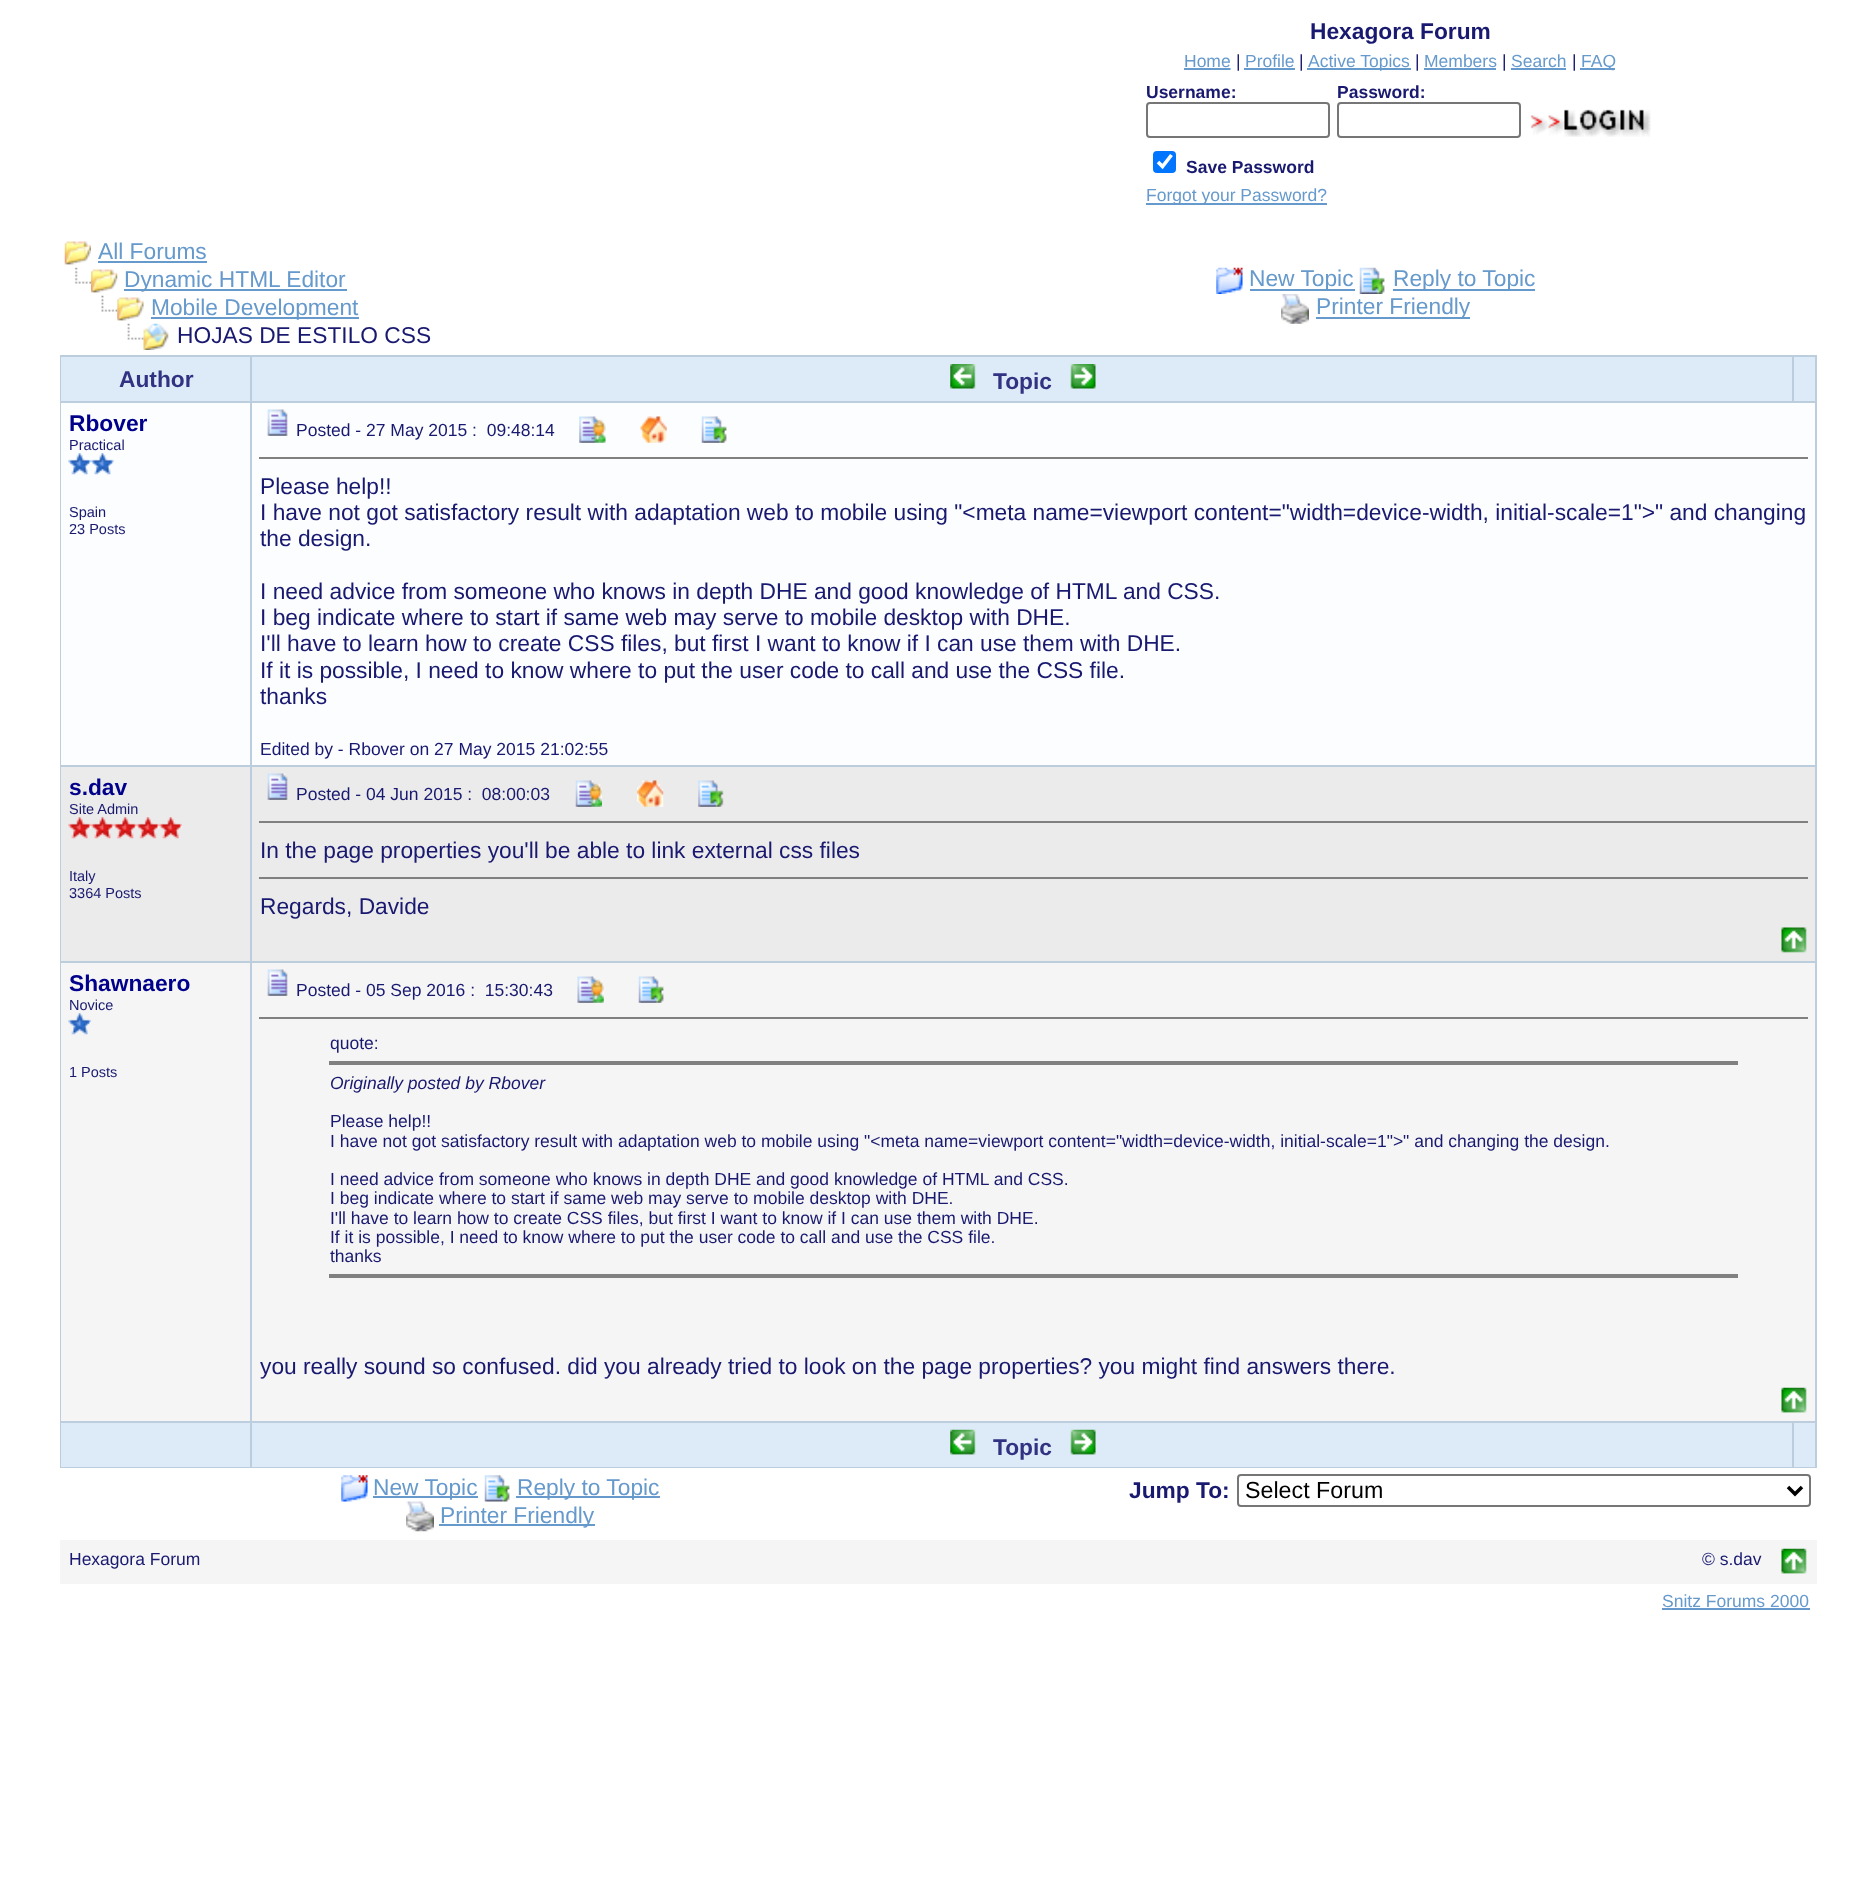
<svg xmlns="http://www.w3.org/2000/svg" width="1876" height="1888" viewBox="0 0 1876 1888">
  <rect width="100%" height="100%" fill="rgb(255,255,255)"/>
  <text x="1310" y="39" font-family="Liberation Sans" font-size="22.75" font-weight="bold" fill="rgb(25,25,112)">Hexagora Forum</text>
  <text x="1184" y="67" font-family="Liberation Sans" font-size="17.5" fill="rgb(102,153,204)">Home</text>
  <path d="M1184 69H1230.5" fill="none" stroke="rgb(102,153,204)" stroke-width="1.8" stroke-dasharray="1.75 1.75"/>
  <rect x="1185" y="68" width="45" height="2" fill="rgb(102,153,204)"/>
  <text x="1236" y="67" font-family="Liberation Sans" font-size="17.5" fill="rgb(25,25,112)">|</text>
  <text x="1245" y="67" font-family="Liberation Sans" font-size="17.5" fill="rgb(102,153,204)">Profile</text>
  <rect x="1244" y="68" width="51" height="2" fill="rgb(102,153,204)"/>
  <text x="1299" y="67" font-family="Liberation Sans" font-size="17.5" fill="rgb(25,25,112)">|</text>
  <rect x="1307" y="68" width="104" height="2" fill="rgb(102,153,204)"/>
  <text x="1308" y="67" font-family="Liberation Sans" font-size="17.5" fill="rgb(102,153,204)">Active Topics</text>
  <text x="1415" y="67" font-family="Liberation Sans" font-size="17.5" fill="rgb(25,25,112)">|</text>
  <text x="1424" y="67" font-family="Liberation Sans" font-size="17.5" fill="rgb(102,153,204)">Members</text>
  <path d="M1424 69H1497" fill="none" stroke="rgb(102,153,204)" stroke-width="1.8" stroke-dasharray="1.75 1.75"/>
  <rect x="1425" y="68" width="71" height="2" fill="rgb(102,153,204)"/>
  <text x="1502" y="67" font-family="Liberation Sans" font-size="17.5" fill="rgb(25,25,112)">|</text>
  <text x="1511" y="67" font-family="Liberation Sans" font-size="17.5" fill="rgb(102,153,204)">Search</text>
  <path d="M1511 69H1566.5" fill="none" stroke="rgb(102,153,204)" stroke-width="1.8" stroke-dasharray="1.75 1.75"/>
  <rect x="1512" y="68" width="54" height="2" fill="rgb(102,153,204)"/>
  <text x="1572" y="67" font-family="Liberation Sans" font-size="17.5" fill="rgb(25,25,112)">|</text>
  <rect x="1580" y="68" width="35" height="2" fill="rgb(102,153,204)"/>
  <text x="1581" y="67" font-family="Liberation Sans" font-size="17.5" fill="rgb(102,153,204)">FAQ</text>
  <text x="1146" y="98" font-family="Liberation Sans" font-size="17.5" font-weight="bold" fill="rgb(25,25,112)">Username:</text>
  <rect x="1147" y="103" width="182" height="34" rx="3" fill="none" stroke="rgb(118,118,118)" stroke-width="2"/>
  <text x="1337" y="98" font-family="Liberation Sans" font-size="17.5" font-weight="bold" fill="rgb(25,25,112)">Password:</text>
  <rect x="1338" y="103" width="182" height="34" rx="3" fill="none" stroke="rgb(118,118,118)" stroke-width="2"/>
  <image x="1530" y="109" width="121" height="28" href="pic1.png"/>
  <rect x="1153" y="151" width="23" height="22" rx="4" fill="rgb(0,117,255)"/>
  <path d="M1158 162L1162.5 166.5L1171.5 155" fill="none" stroke="rgb(255,255,255)" stroke-width="3.6"/>
  <text x="1186" y="173" font-family="Liberation Sans" font-size="17.5" font-weight="bold" fill="rgb(25,25,112)">Save Password</text>
  <rect x="1146" y="203" width="181" height="2" fill="rgb(102,153,204)"/>
  <text x="1146" y="201" font-family="Liberation Sans" font-size="17.5" fill="rgb(102,153,204)">Forgot your Password?</text>
  <image x="64" y="241" width="27" height="24" href="pic2.png"/>
  <text x="98" y="259" font-family="Liberation Sans" font-size="22.75" fill="rgb(102,153,204)">All Forums</text>
  <rect x="98" y="261" width="109" height="2" fill="rgb(102,153,204)"/>
  <image x="74" y="267" width="17" height="17" href="pic3.png"/>
  <image x="91" y="269" width="27" height="24" href="pic4.png"/>
  <rect x="124" y="289" width="223" height="2" fill="rgb(102,153,204)"/>
  <text x="124" y="287" font-family="Liberation Sans" font-size="22.75" fill="rgb(102,153,204)">Dynamic HTML Editor</text>
  <image x="101" y="295" width="17" height="17" href="pic5.png"/>
  <image x="117" y="297" width="27" height="24" href="pic6.png"/>
  <rect x="151" y="317" width="208" height="2" fill="rgb(102,153,204)"/>
  <text x="151" y="315" font-family="Liberation Sans" font-size="22.75" fill="rgb(102,153,204)">Mobile Development</text>
  <image x="127" y="323" width="17" height="17" href="pic7.png"/>
  <image x="143" y="323" width="26" height="27" href="pic8.png"/>
  <text x="177" y="343" font-family="Liberation Sans" font-size="22.75" fill="rgb(25,25,112)">HOJAS DE ESTILO CSS</text>
  <image x="1216" y="267" width="27" height="27" href="pic9.png"/>
  <rect x="1250" y="289" width="105" height="2" fill="rgb(102,153,204)"/>
  <text x="1249" y="286" font-family="Liberation Sans" font-size="22.75" fill="rgb(102,153,204)">New Topic</text>
  <image x="1359" y="267" width="26" height="27" href="pic10.png"/>
  <rect x="1393" y="289" width="142" height="2" fill="rgb(102,153,204)"/>
  <text x="1393" y="286" font-family="Liberation Sans" font-size="22.75" fill="rgb(102,153,204)">Reply to Topic</text>
  <image x="1281" y="294" width="28" height="30" href="pic11.png"/>
  <rect x="1316" y="317" width="154" height="2" fill="rgb(102,153,204)"/>
  <text x="1316" y="314" font-family="Liberation Sans" font-size="22.75" fill="rgb(102,153,204)">Printer Friendly</text>
  <rect x="60" y="355" width="1757" height="1113" fill="rgb(188,205,221)"/>
  <rect x="61" y="357" width="189" height="44" fill="rgb(221,234,247)"/>
  <text x="119" y="387" font-family="Liberation Sans" font-size="22.75" font-weight="bold" fill="rgb(50,50,130)">Author</text>
  <rect x="252" y="357" width="1540" height="44" fill="rgb(221,234,247)"/>
  <image x="950" y="364" width="26" height="25" href="pic12.png"/>
  <text x="993" y="389" font-family="Liberation Sans" font-size="22.75" font-weight="bold" fill="rgb(50,50,130)">Topic</text>
  <image x="1070" y="364" width="26" height="25" href="pic13.png"/>
  <rect x="1794" y="357" width="21" height="44" fill="rgb(221,234,247)"/>
  <rect x="61" y="403" width="189" height="362" fill="rgb(251,253,255)"/>
  <text x="69" y="431" font-family="Liberation Sans" font-size="22.75" font-weight="bold" fill="rgb(0,0,139)">Rbover</text>
  <text x="69" y="450" font-family="Liberation Sans" font-size="14.5" fill="rgb(25,25,112)">Practical</text>
  <image x="68" y="453" width="23" height="22" href="pic14.png"/>
  <image x="91" y="453" width="23" height="22" href="pic15.png"/>
  <g font-family="Liberation Sans" font-size="14.5" fill="rgb(25,25,112)">
    <text>
      <tspan x="69" y="517">Spain</tspan>
      <tspan x="69" y="534">23 Posts</tspan>
    </text>
  </g>
  <rect x="252" y="403" width="1563" height="362" fill="rgb(251,253,255)"/>
  <image x="267" y="409" width="21" height="27" href="pic16.png"/>
  <text x="296" y="436" font-family="Liberation Sans" font-size="17.5" fill="rgb(25,25,112)" xml:space="preserve">Posted - 27 May 2015 :  09:48:14</text>
  <image x="579" y="416" width="27" height="27" href="pic17.png"/>
  <image x="640" y="416" width="27" height="27" href="pic18.png"/>
  <image x="701" y="416" width="26" height="27" href="pic19.png"/>
  <rect x="259" y="457" width="1549" height="2" fill="rgb(128,128,128)"/>
  <g font-family="Liberation Sans" font-size="22.75" fill="rgb(25,25,112)">
    <text>
      <tspan x="260" y="494">Please help!!</tspan>
      <tspan x="260" y="520">I have not got satisfactory result with adaptation web to mobile using "&lt;meta name=viewport content="width=device-width, initial-scale=1"&gt;" and changing</tspan>
      <tspan x="260" y="546">the design.</tspan>
    </text>
    <text>
      <tspan x="260" y="599">I need advice from someone who knows in depth DHE and good knowledge of HTML and CSS.</tspan>
      <tspan x="260" y="625">I beg indicate where to start if same web may serve to mobile desktop with DHE.</tspan>
      <tspan x="260" y="651">I'll have to learn how to create CSS files, but first I want to know if I can use them with DHE.</tspan>
      <tspan x="260" y="678">If it is possible, I need to know where to put the user code to call and use the CSS file.</tspan>
      <tspan x="260" y="704">thanks</tspan>
    </text>
  </g>
  <text x="260" y="755" font-family="Liberation Sans" font-size="17.5" fill="rgb(25,25,112)">Edited by - Rbover on 27 May 2015 21:02:55</text>
  <rect x="61" y="767" width="189" height="194" fill="rgb(235,235,235)"/>
  <text x="69" y="795" font-family="Liberation Sans" font-size="22.75" font-weight="bold" fill="rgb(0,0,139)">s.dav</text>
  <text x="69" y="814" font-family="Liberation Sans" font-size="14.5" fill="rgb(25,25,112)">Site Admin</text>
  <image x="68" y="817" width="23" height="22" href="pic20.png"/>
  <image x="91" y="817" width="23" height="22" href="pic21.png"/>
  <image x="113" y="817" width="24" height="22" href="pic22.png"/>
  <image x="136" y="817" width="24" height="22" href="pic23.png"/>
  <image x="159" y="817" width="23" height="22" href="pic24.png"/>
  <g font-family="Liberation Sans" font-size="14.5" fill="rgb(25,25,112)">
    <text>
      <tspan x="69" y="881">Italy</tspan>
      <tspan x="69" y="898">3364 Posts</tspan>
    </text>
  </g>
  <rect x="252" y="767" width="1563" height="194" fill="rgb(235,235,235)"/>
  <image x="267" y="773" width="21" height="27" href="pic25.png"/>
  <text x="296" y="800" font-family="Liberation Sans" font-size="17.5" fill="rgb(25,25,112)" xml:space="preserve">Posted - 04 Jun 2015 :  08:00:03</text>
  <image x="575" y="780" width="27" height="27" href="pic26.png"/>
  <image x="637" y="780" width="27" height="27" href="pic27.png"/>
  <image x="698" y="780" width="26" height="27" href="pic28.png"/>
  <rect x="259" y="821" width="1549" height="2" fill="rgb(128,128,128)"/>
  <text x="260" y="858" font-family="Liberation Sans" font-size="22.75" fill="rgb(25,25,112)">In the page properties you'll be able to link external css files</text>
  <rect x="259" y="877" width="1549" height="2" fill="rgb(128,128,128)"/>
  <text x="260" y="914" font-family="Liberation Sans" font-size="22.75" fill="rgb(25,25,112)">Regards, Davide</text>
  <image x="1781" y="927" width="26" height="26" href="pic29.png"/>
  <rect x="61" y="963" width="189" height="458" fill="rgb(245,245,245)"/>
  <text x="69" y="991" font-family="Liberation Sans" font-size="22.75" font-weight="bold" fill="rgb(0,0,139)">Shawnaero</text>
  <text x="69" y="1010" font-family="Liberation Sans" font-size="14.5" fill="rgb(25,25,112)">Novice</text>
  <image x="68" y="1013" width="23" height="22" href="pic30.png"/>
  <text x="69" y="1077" font-family="Liberation Sans" font-size="14.5" fill="rgb(25,25,112)">1 Posts</text>
  <rect x="252" y="963" width="1563" height="458" fill="rgb(245,245,245)"/>
  <image x="267" y="969" width="21" height="27" href="pic31.png"/>
  <text x="296" y="996" font-family="Liberation Sans" font-size="17.5" fill="rgb(25,25,112)" xml:space="preserve">Posted - 05 Sep 2016 :  15:30:43</text>
  <image x="577" y="976" width="27" height="27" href="pic32.png"/>
  <image x="638" y="976" width="26" height="27" href="pic33.png"/>
  <rect x="259" y="1017" width="1549" height="2" fill="rgb(128,128,128)"/>
  <text x="330" y="1049" font-family="Liberation Sans" font-size="17.5" fill="rgb(25,25,112)">quote:</text>
  <rect x="329" y="1061" width="1409" height="4" fill="rgb(128,128,128)"/>
  <text x="330" y="1089" font-family="Liberation Sans" font-size="17.5" font-style="italic" fill="rgb(25,25,112)">Originally posted by Rbover</text>
  <g font-family="Liberation Sans" font-size="17.5" fill="rgb(25,25,112)">
    <text>
      <tspan x="330" y="1127">Please help!!</tspan>
      <tspan x="330" y="1147">I have not got satisfactory result with adaptation web to mobile using "&lt;meta name=viewport content="width=device-width, initial-scale=1"&gt;" and changing the design.</tspan>
    </text>
    <text>
      <tspan x="330" y="1185">I need advice from someone who knows in depth DHE and good knowledge of HTML and CSS.</tspan>
      <tspan x="330" y="1204">I beg indicate where to start if same web may serve to mobile desktop with DHE.</tspan>
      <tspan x="330" y="1224">I'll have to learn how to create CSS files, but first I want to know if I can use them with DHE.</tspan>
      <tspan x="330" y="1243">If it is possible, I need to know where to put the user code to call and use the CSS file.</tspan>
      <tspan x="330" y="1262">thanks</tspan>
    </text>
  </g>
  <rect x="329" y="1274" width="1409" height="4" fill="rgb(128,128,128)"/>
  <text x="260" y="1374" font-family="Liberation Sans" font-size="22.75" fill="rgb(25,25,112)">you really sound so confused. did you already tried to look on the page properties? you might find answers there.</text>
  <image x="1781" y="1387" width="26" height="26" href="pic34.png"/>
  <rect x="61" y="1423" width="189" height="44" fill="rgb(221,234,247)"/>
  <rect x="252" y="1423" width="1540" height="44" fill="rgb(221,234,247)"/>
  <image x="950" y="1429" width="26" height="26" href="pic35.png"/>
  <text x="993" y="1455" font-family="Liberation Sans" font-size="22.75" font-weight="bold" fill="rgb(50,50,130)">Topic</text>
  <image x="1070" y="1429" width="26" height="26" href="pic36.png"/>
  <rect x="1794" y="1423" width="21" height="44" fill="rgb(221,234,247)"/>
  <image x="341" y="1475" width="27" height="27" href="pic37.png"/>
  <rect x="373" y="1496" width="105" height="2" fill="rgb(102,153,204)"/>
  <text x="373" y="1495" font-family="Liberation Sans" font-size="22.75" fill="rgb(102,153,204)">New Topic</text>
  <image x="484" y="1475" width="26" height="27" href="pic38.png"/>
  <rect x="516" y="1496" width="144" height="2" fill="rgb(102,153,204)"/>
  <text x="517" y="1495" font-family="Liberation Sans" font-size="22.75" fill="rgb(102,153,204)">Reply to Topic</text>
  <image x="406" y="1501" width="28" height="31" href="pic39.png"/>
  <rect x="439" y="1524" width="156" height="2" fill="rgb(102,153,204)"/>
  <text x="440" y="1523" font-family="Liberation Sans" font-size="22.75" fill="rgb(102,153,204)">Printer Friendly</text>
  <text x="1129" y="1498" font-family="Liberation Sans" font-size="22.75" font-weight="bold" fill="rgb(25,25,112)">Jump To:</text>
  <rect x="1238" y="1475" width="572" height="31" rx="3" fill="none" stroke="rgb(118,118,118)" stroke-width="2"/>
  <path d="M1788 1487L1795 1494L1802 1487" fill="none" stroke="rgb(0,0,0)" stroke-width="3.5"/>
  <text x="1245" y="1498" font-family="Liberation Sans" font-size="23.25" fill="rgb(0,0,0)">Select Forum</text>
  <rect x="60" y="1540" width="1757" height="44" fill="rgb(245,245,245)"/>
  <g font-family="Liberation Sans" font-size="17.5" fill="rgb(25,25,112)">
    <text x="69" y="1565">Hexagora Forum</text>
    <text x="1702" y="1565">© s.dav</text>
  </g>
  <image x="1781" y="1548" width="26" height="26" href="pic34.png"/>
  <text x="1662" y="1607" font-family="Liberation Sans" font-size="17.5" fill="rgb(102,153,204)">Snitz Forums 2000</text>
  <path d="M1662 1609H1809" fill="none" stroke="rgb(102,153,204)" stroke-width="1.8" stroke-dasharray="1.75 1.75"/>
  <rect x="1663" y="1608" width="147" height="2" fill="rgb(102,153,204)"/>
</svg>
